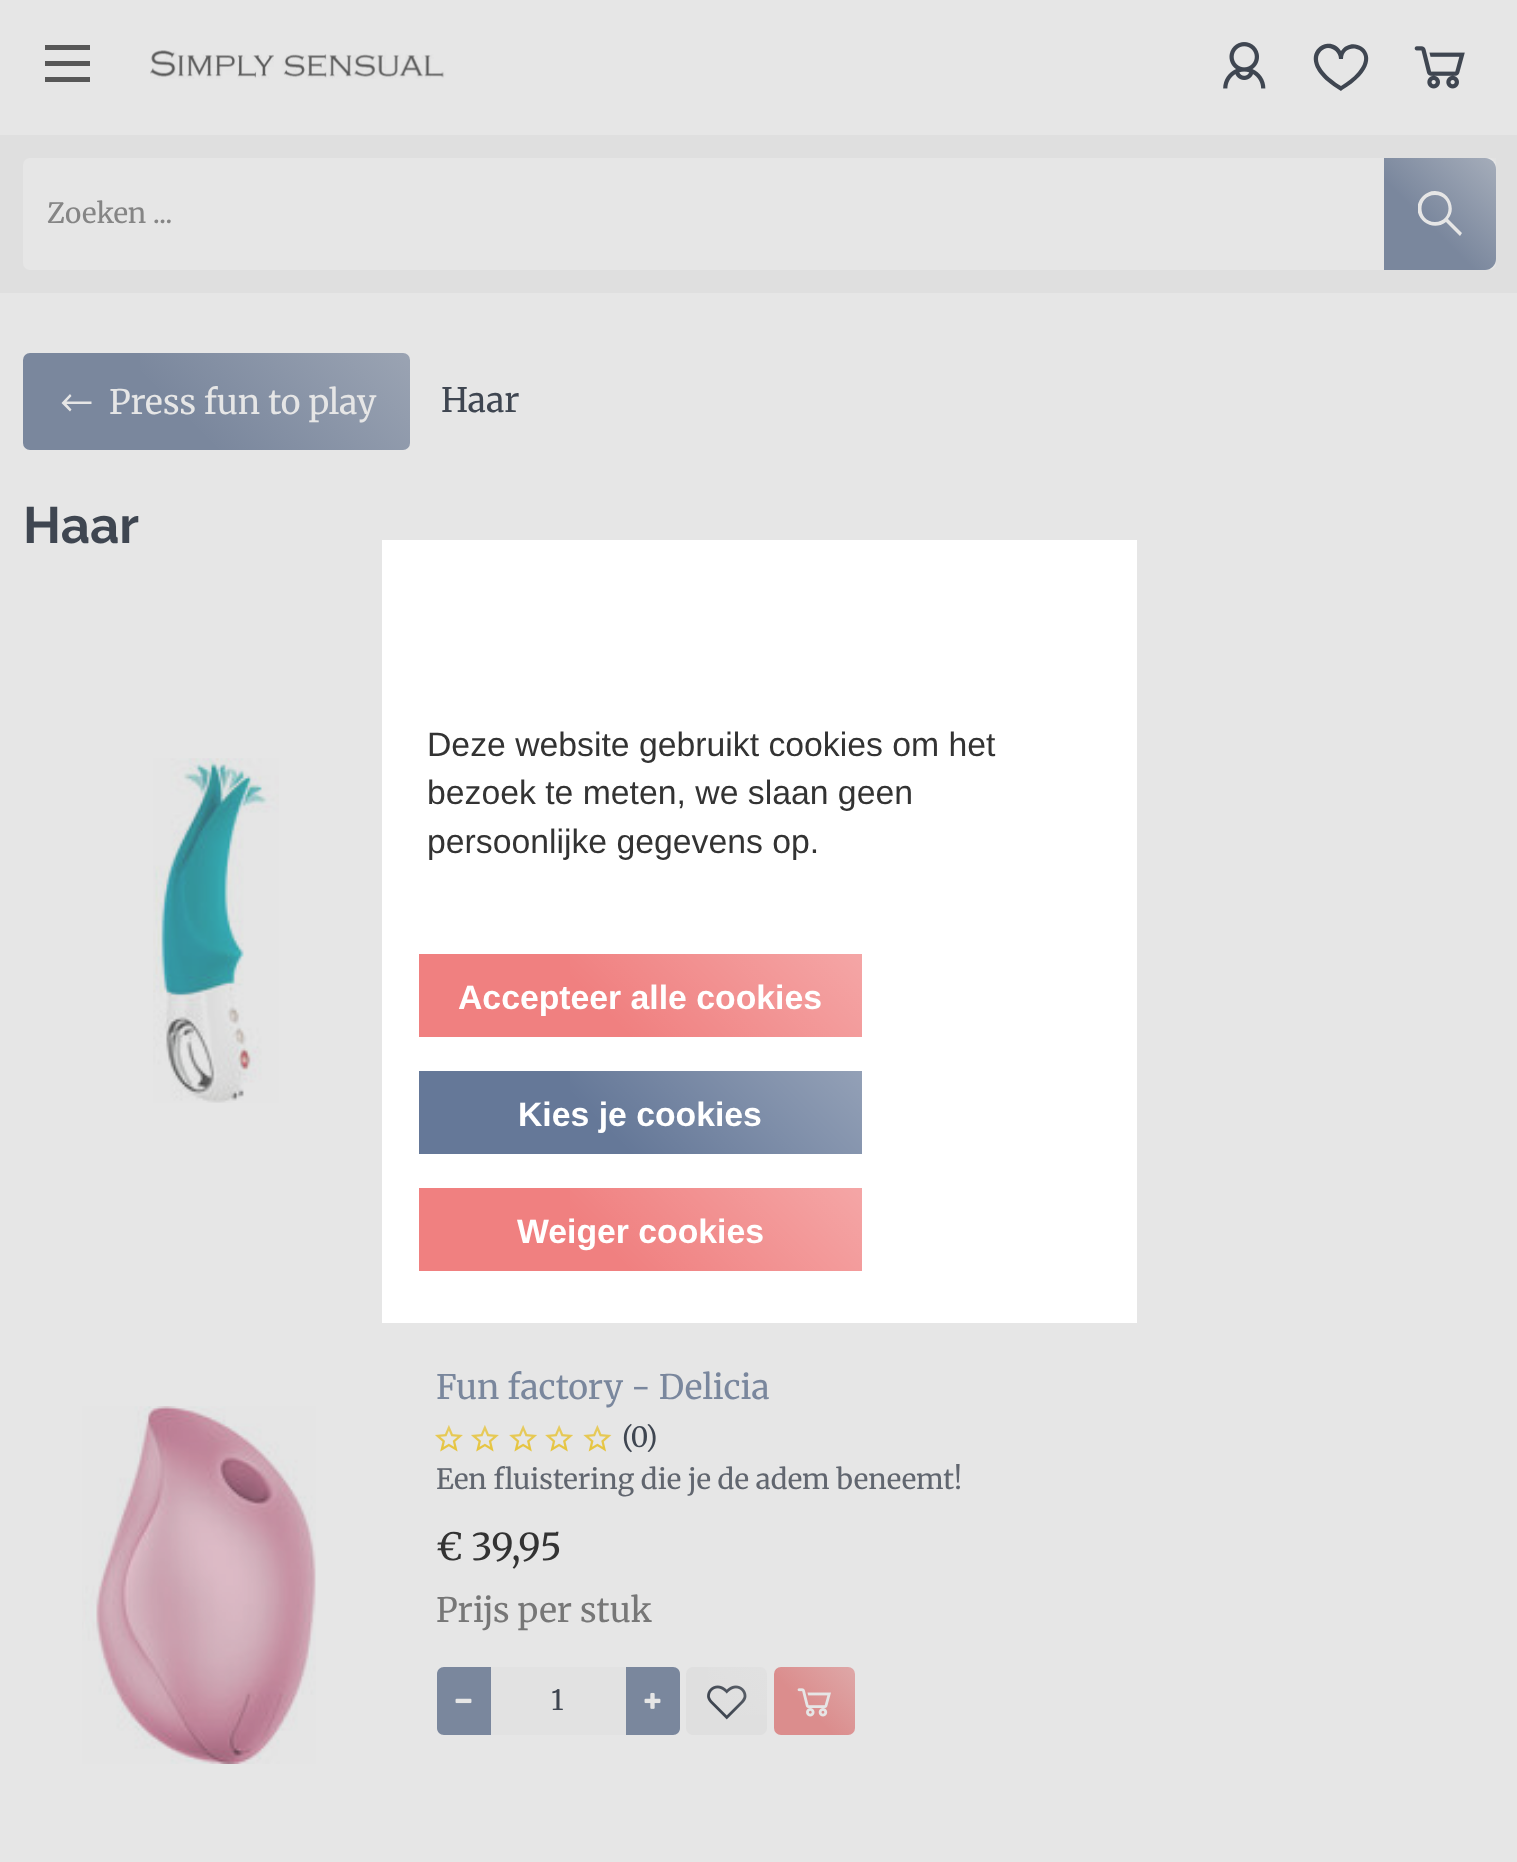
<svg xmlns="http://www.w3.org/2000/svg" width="1517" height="1862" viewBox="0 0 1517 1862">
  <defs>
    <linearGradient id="g1" gradientUnits="userSpaceOnUse" x1="1496" y1="158" x2="1384" y2="270"><stop offset="0" stop-color="rgb(230,230,230)" stop-opacity="0.4"/><stop offset="0.6" stop-color="rgb(230,230,230)" stop-opacity="0"/></linearGradient>
    <clipPath id="clip1"><rect x="1418" y="191" width="45" height="45"/></clipPath>
    <linearGradient id="g2" gradientUnits="userSpaceOnUse" x1="337" y1="281" x2="95" y2="523"><stop offset="0" stop-color="rgb(230,230,230)" stop-opacity="0.3"/><stop offset="0.6" stop-color="rgb(230,230,230)" stop-opacity="0"/></linearGradient>
    <linearGradient id="g3" gradientUnits="userSpaceOnUse" x1="764" y1="1664" x2="690" y2="1738"><stop offset="0" stop-color="rgb(230,230,230)" stop-opacity="0.3"/><stop offset="0.6" stop-color="rgb(230,230,230)" stop-opacity="0"/></linearGradient>
    <linearGradient id="g4" gradientUnits="userSpaceOnUse" x1="852" y1="1664" x2="777" y2="1738"><stop offset="0" stop-color="rgb(230,230,230)" stop-opacity="0.3"/><stop offset="0.6" stop-color="rgb(230,230,230)" stop-opacity="0"/></linearGradient>
    <linearGradient id="g5" gradientUnits="userSpaceOnUse" x1="772" y1="864" x2="509" y2="1127"><stop offset="0" stop-color="rgb(255,255,255)" stop-opacity="0.3"/><stop offset="0.6" stop-color="rgb(255,255,255)" stop-opacity="0"/></linearGradient>
    <linearGradient id="g6" gradientUnits="userSpaceOnUse" x1="772" y1="981" x2="509" y2="1244"><stop offset="0" stop-color="rgb(255,255,255)" stop-opacity="0.3"/><stop offset="0.6" stop-color="rgb(255,255,255)" stop-opacity="0"/></linearGradient>
    <linearGradient id="g7" gradientUnits="userSpaceOnUse" x1="772" y1="1098" x2="509" y2="1361"><stop offset="0" stop-color="rgb(255,255,255)" stop-opacity="0.3"/><stop offset="0.6" stop-color="rgb(255,255,255)" stop-opacity="0"/></linearGradient>
  </defs>
  <rect width="100%" height="100%" fill="rgb(230,230,230)"/>
  <rect x="45" y="45" width="45" height="5" fill="rgb(87,87,87)"/>
  <rect x="45" y="61" width="45" height="5" fill="rgb(87,87,87)"/>
  <rect x="45" y="77" width="45" height="5" fill="rgb(87,87,87)"/>
  <image x="150" y="50" width="296" height="29" href="pic1.png"/>
  <image x="1223" y="42" width="43" height="47" href="pic2.png"/>
  <path d="M1341 91C1287 59 1328 30 1341 51C1352 34 1383 51 1360 76C1355 81 1349 86 1342 90ZM1328 48C1323 48 1318 53 1318 59C1318 71 1336 83 1341 86C1347 82 1353 78 1358 72C1378 48 1343 40 1343 59H1339C1339 53 1334 48 1328 48Z" fill="rgb(63,70,81)"/>
  <image x="1414" y="46" width="51" height="43" href="pic3.png"/>
  <rect x="0" y="135" width="1517" height="158" fill="rgb(223,223,223)"/>
  <rect x="23" y="158" width="1473" height="112" rx="7" fill="rgb(230,230,230)"/>
  <text x="47" y="223" font-family="Merriweather" font-size="27.8" fill="rgb(133,133,133)">Zoeken ...</text>
  <path d="M1384 158H1485C1491 158 1496 163 1496 169V259C1496 265 1491 270 1485 270H1384Z" fill="rgb(122,135,157)"/>
  <rect x="1384" y="158" width="112" height="112" fill="url(#g1)"/>
  <g clip-path="url(#clip1)">
    <path d="M1435 191C1449 191 1457 209 1448 219L1462 233L1460 236L1446 222C1429 235 1407 212 1423 196C1426 193 1430 191 1435 191ZM1435 195C1417 195 1417 222 1435 222C1453 222 1453 195 1435 195Z" fill="rgb(230,230,230)"/>
  </g>
  <rect x="23" y="353" width="387" height="97" rx="7" fill="rgb(122,135,157)"/>
  <rect x="140" y="353" width="270" height="97" fill="url(#g2)"/>
  <path d="M70 394L61.5 403L70 411.5L71.5 409.5L66.5 404H91.5V401.5H66.5L71.5 396Z" fill="rgb(230,230,230)"/>
  <text x="109" y="414" font-family="Merriweather" font-size="33.75" fill="rgb(230,230,230)">Press fun to play</text>
  <text x="441" y="412" font-family="Merriweather" font-size="33.75" fill="rgb(63,70,81)">Haar</text>
  <text x="23" y="543" font-family="Raleway" font-size="51" font-weight="bold" fill="rgb(63,70,81)">Haar</text>
  <image x="153" y="758" width="126" height="345" href="pic4.png"/>
  <image x="82" y="1406" width="234" height="358" href="pic5.png"/>
  <text x="436" y="1399" font-family="Merriweather" font-size="33.75" fill="rgb(122,135,157)">Fun factory - Delicia</text>
  <image x="435" y="1425" width="28" height="27" href="pic6.png"/>
  <image x="471" y="1425" width="28" height="27" href="pic6.png"/>
  <image x="509" y="1425" width="28" height="27" href="pic7.png"/>
  <image x="545" y="1425" width="28" height="27" href="pic7.png"/>
  <image x="583" y="1425" width="29" height="27" href="pic8.png"/>
  <text x="622" y="1447" font-family="Merriweather" font-size="27.8" fill="rgb(63,70,81)">(0)</text>
  <text x="436" y="1489" font-family="Merriweather" font-size="27.8" fill="rgb(97,102,111)">Een fluistering die je de adem beneemt!</text>
  <text x="436" y="1560" font-family="Merriweather" font-size="37" fill="rgb(51,51,51)">€ 39,95</text>
  <text x="436" y="1622" font-family="Merriweather" font-size="33.75" fill="rgb(119,119,119)">Prijs per stuk</text>
  <path d="M444 1667H491V1735H444C440 1735 437 1732 437 1728V1674C437 1670 440 1667 444 1667Z" fill="rgb(122,135,157)"/>
  <image x="455" y="1698" width="17" height="6" href="pic9.png"/>
  <rect x="491" y="1667" width="135" height="68" fill="rgb(226,226,226)"/>
  <text x="551" y="1710" font-family="Merriweather" font-size="27.8" fill="rgb(63,70,81)">1</text>
  <path d="M626 1667H673C677 1667 680 1670 680 1674V1728C680 1732 677 1735 673 1735H626Z" fill="rgb(122,135,157)"/>
  <image x="644" y="1692" width="17" height="17" href="pic10.png"/>
  <rect x="686" y="1667" width="81" height="68" rx="7" fill="rgb(223,223,223)"/>
  <image x="707" y="1685" width="40" height="35" href="pic11.png"/>
  <rect x="708" y="1667" width="59" height="48" fill="url(#g3)"/>
  <rect x="774" y="1667" width="81" height="68" rx="7" fill="rgb(219,141,141)"/>
  <image x="797" y="1688" width="34" height="29" href="pic12.png"/>
  <rect x="777" y="1667" width="78" height="68" fill="url(#g4)"/>
  <rect x="382" y="540" width="755" height="783" fill="rgb(255,255,255)"/>
  <g font-family="Liberation Sans" font-size="33.75" fill="rgb(51,51,51)">
    <text>
      <tspan x="427" y="756">Deze website gebruikt cookies om het</tspan>
      <tspan x="427" y="804">bezoek te meten, we slaan geen</tspan>
      <tspan x="427" y="853">persoonlijke gegevens op.</tspan>
    </text>
  </g>
  <rect x="419" y="954" width="443" height="83" fill="rgb(240,128,128)"/>
  <rect x="570" y="954" width="292" height="83" fill="url(#g5)"/>
  <text x="458" y="1009" font-family="Liberation Sans" font-size="33.75" font-weight="bold" fill="rgb(255,255,255)">Accepteer alle cookies</text>
  <rect x="419" y="1071" width="443" height="83" fill="rgb(101,120,152)"/>
  <rect x="570" y="1071" width="292" height="83" fill="url(#g6)"/>
  <text x="518" y="1126" font-family="Liberation Sans" font-size="33.75" font-weight="bold" fill="rgb(255,255,255)">Kies je cookies</text>
  <rect x="419" y="1188" width="443" height="83" fill="rgb(240,128,128)"/>
  <rect x="570" y="1188" width="292" height="83" fill="url(#g7)"/>
  <text x="517" y="1243" font-family="Liberation Sans" font-size="33.75" font-weight="bold" fill="rgb(255,255,255)">Weiger cookies</text>
</svg>
